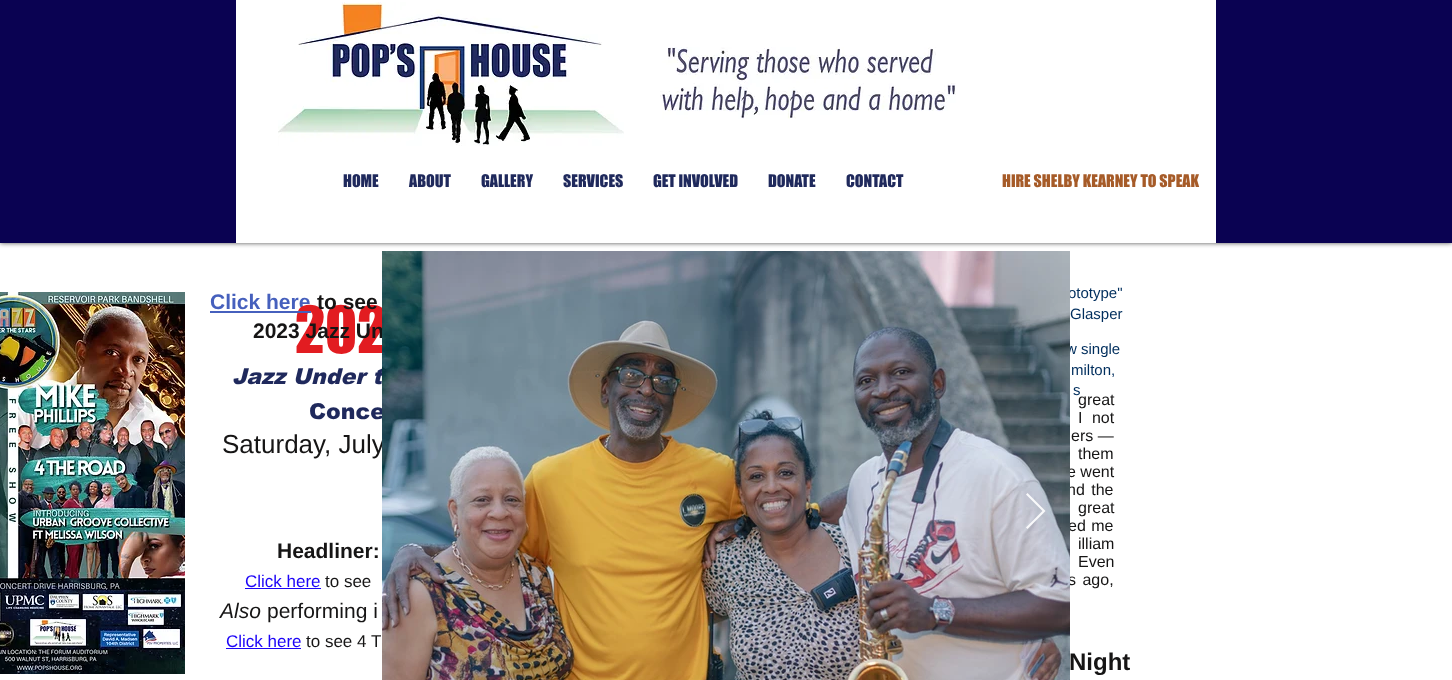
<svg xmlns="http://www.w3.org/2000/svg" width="1452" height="680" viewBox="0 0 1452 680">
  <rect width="100%" height="100%" fill="rgb(255,255,255)"/>
  <rect x="0" y="0" width="1452" height="243" fill="rgba(0,0,0,0.7)" filter="blur(2.5px)"/>
  <rect x="0" y="0" width="1452" height="243" fill="rgb(10,2,82)"/>
  <rect x="236" y="0" width="980" height="243" fill="rgb(255,255,255)"/>
  <image x="278" y="2" width="346" height="144" href="pic1.png"/>
  <image x="660" y="47" width="296" height="72" href="pic2.png"/>
  <g font-family="'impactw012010'" font-size="16" fill="rgb(31,41,92)">
    <text x="343" y="187">HOME</text>
    <text x="409" y="187">ABOUT</text>
    <text x="481" y="187">GALLERY</text>
    <text x="563" y="187">SERVICES</text>
    <text x="653" y="187">GET INVOLVED</text>
    <text x="768" y="187">DONATE</text>
    <text x="846" y="187">CONTACT</text>
  </g>
  <text x="1002" y="187" font-family="'impactw012010'" font-size="16" fill="rgb(166,91,40)">HIRE SHELBY KEARNEY TO SPEAK</text>
  <image x="0" y="292" width="185" height="382" href="pic3.png"/>
  <text x="210" y="309" font-family="Liberation Sans" font-size="21" font-weight="bold" fill="rgb(70,96,189)">Click here</text>
  <text x="295" y="353" font-family="'impactw012010'" font-size="60" fill="rgb(226,28,33)">202</text>
  <rect x="210" y="311" width="101" height="2" fill="rgb(70,96,189)"/>
  <g font-family="Liberation Sans" font-size="21" font-weight="bold" fill="rgb(22,21,21)">
    <text x="317" y="309">to see</text>
    <text x="253" y="338">2023 Jazz Un</text>
  </g>
  <g font-family="Liberation Sans" font-size="15" fill="rgb(0,46,93)">
    <text x="1068" y="298">ototype"</text>
    <text x="1066" y="354">w single</text>
  </g>
  <text x="232" y="384" font-family="arial" font-size="22" font-weight="900" font-style="italic" fill="rgb(31,41,92)">Jazz Under t</text>
  <text x="309" y="419" font-family="arial" font-size="22" font-weight="900" fill="rgb(31,41,92)">Conce</text>
  <text x="324" y="453" font-family="Liberation Sans" font-size="26" fill="rgb(22,21,21)">, July</text>
  <g font-family="Liberation Sans" font-size="16" fill="rgb(22,21,21)">
    <text>
      <tspan x="1067" y="477">e went</tspan>
      <tspan x="1067" y="495" word-spacing="2">nd the</tspan>
    </text>
    <text x="1068" y="531" word-spacing="1">ed me</text>
    <text x="1068" y="585" word-spacing="2">s ago,</text>
  </g>
  <image x="382" y="251" width="688" height="429" href="pic4.png"/>
  <path d="M1026 494.5L1027.5 493L1045.5 511L1027.5 529L1026 527.5L1042.5 511Z" fill="rgba(255,255,255,0.9)"/>
  <g font-family="Liberation Sans" font-size="15" fill="rgb(0,46,93)">
    <text x="1070" y="319">Glasper</text>
    <text x="1071" y="375">milton,</text>
    <text x="1073" y="395">s</text>
  </g>
  <text x="222" y="453" font-family="Liberation Sans" font-size="26" fill="rgb(22,21,21)">Saturday</text>
  <g font-family="Liberation Sans" font-size="16" fill="rgb(22,21,21)">
    <text>
      <tspan x="1078" y="405" word-spacing="1">great</tspan>
      <tspan x="1078" y="423" word-spacing="5">I not</tspan>
    </text>
    <text x="1071" y="441">ers —</text>
    <text x="1078" y="459" word-spacing="1">them</text>
    <text x="1078" y="513" word-spacing="18">great</text>
    <text>
      <tspan x="1078" y="549" word-spacing="9">illiam</tspan>
      <tspan x="1078" y="567" word-spacing="6">Even</tspan>
    </text>
  </g>
  <text x="277" y="558" font-family="Liberation Sans" font-size="21" font-weight="bold" fill="rgb(22,21,21)">Headliner:</text>
  <text x="245" y="587" font-family="Liberation Sans" font-size="17" fill="rgb(29,5,247)">Click here</text>
  <rect x="245" y="588" width="76" height="1" fill="rgb(29,5,247)"/>
  <text x="325" y="587" font-family="Liberation Sans" font-size="17" fill="rgb(22,21,21)">to see</text>
  <text x="220" y="618" font-family="Liberation Sans" font-size="21" font-style="italic" fill="rgb(22,21,21)">Also</text>
  <text x="267" y="618" font-family="Liberation Sans" font-size="21" fill="rgb(22,21,21)">performing i</text>
  <text x="226" y="647" font-family="Liberation Sans" font-size="17" fill="rgb(29,5,247)">Click here</text>
  <rect x="226" y="648" width="75" height="1" fill="rgb(29,5,247)"/>
  <text x="306" y="647" font-family="Liberation Sans" font-size="17" fill="rgb(22,21,21)">to see 4 T</text>
  <text x="1069" y="670" font-family="Liberation Sans" font-size="24" font-weight="bold" fill="rgb(22,21,21)">Night</text>
</svg>
